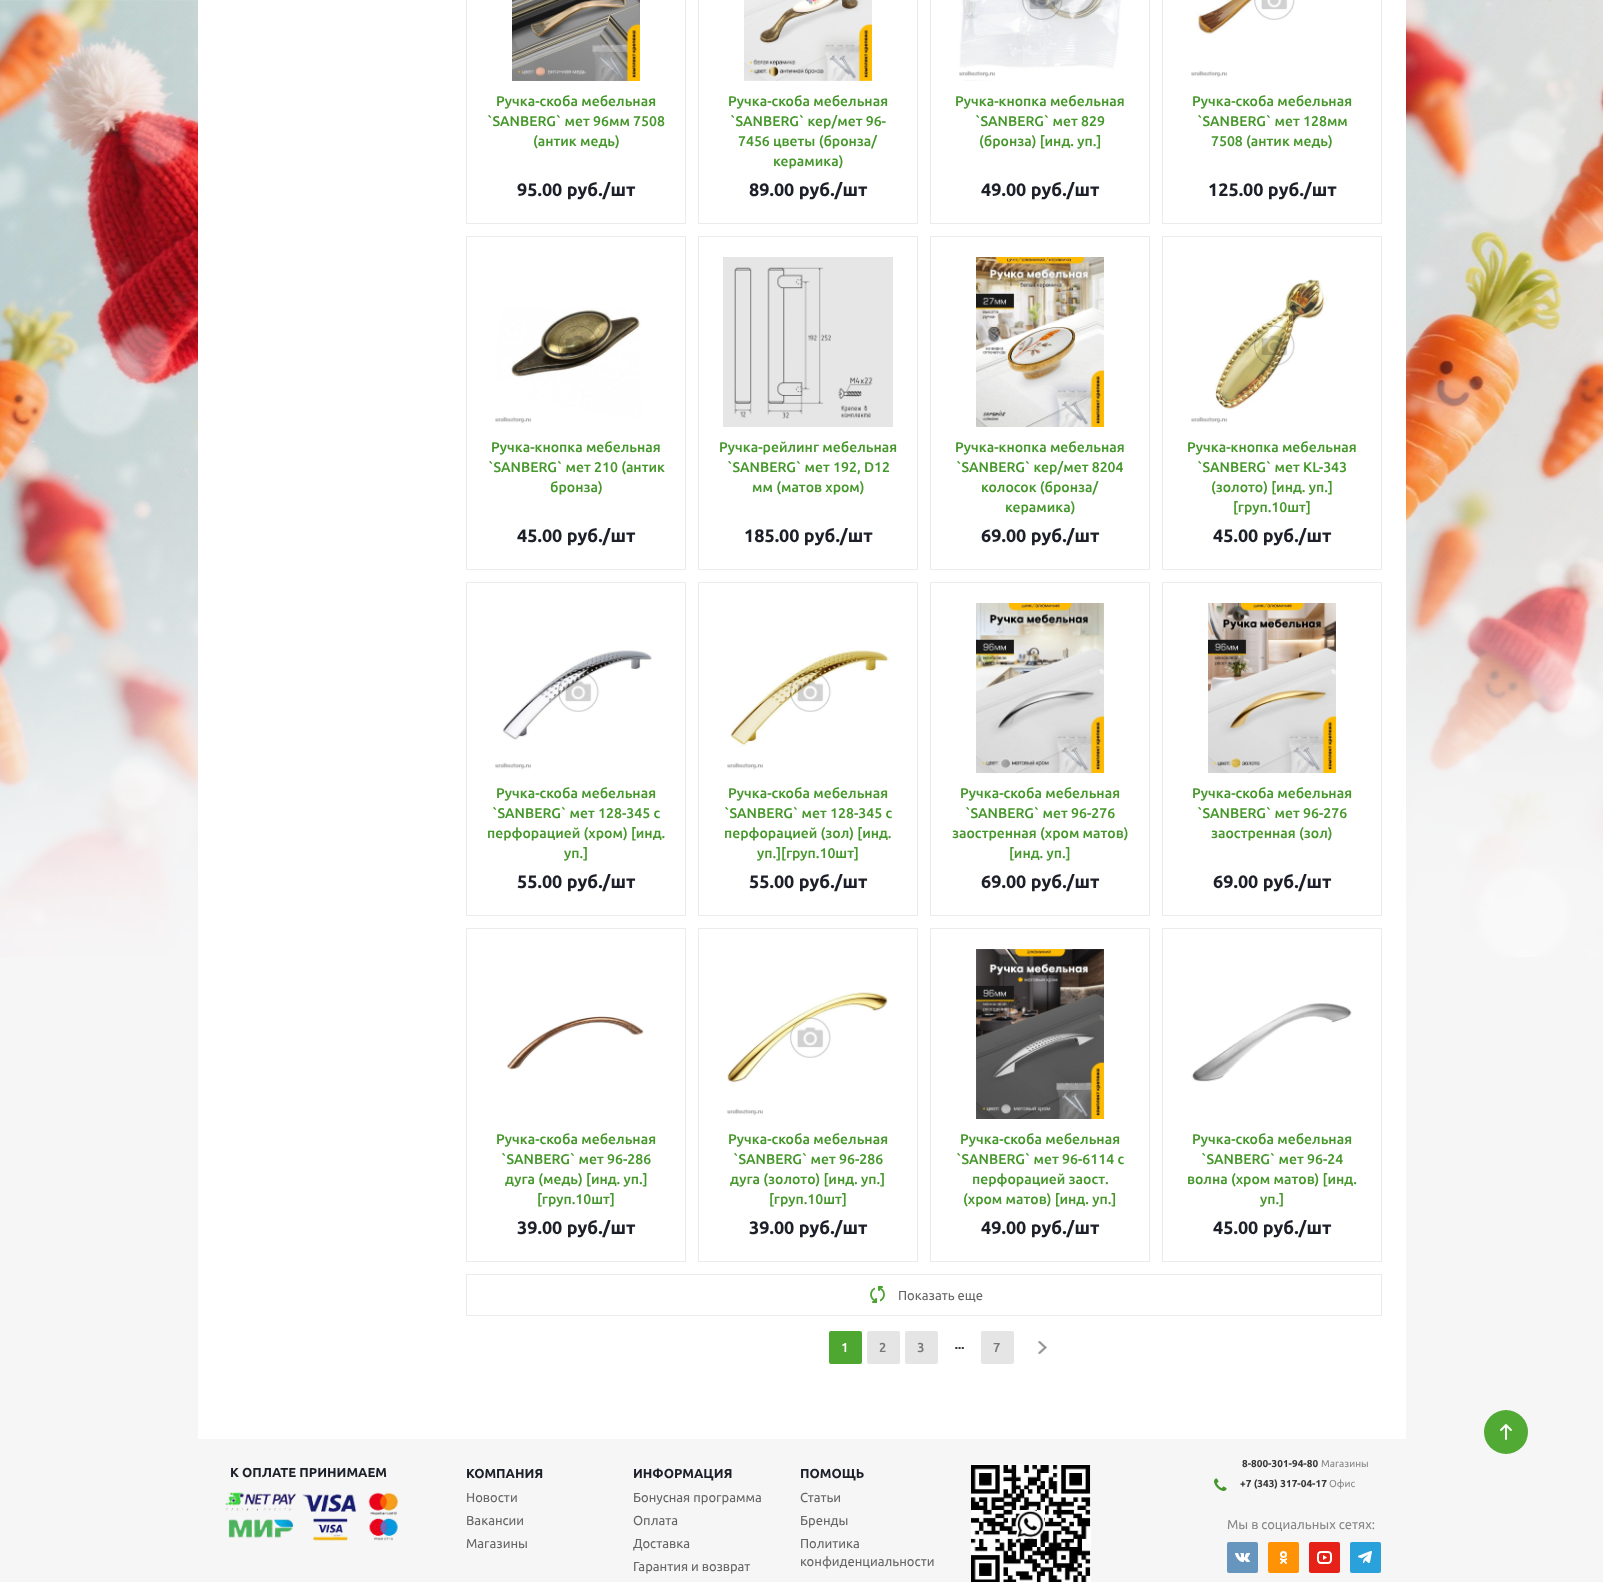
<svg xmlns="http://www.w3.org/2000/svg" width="1603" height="1582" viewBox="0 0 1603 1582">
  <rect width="100%" height="100%" fill="rgb(246,246,247)"/>
  <image x="0" y="0" width="1603" height="957" href="pic1.png"/>
  <rect x="198" y="0" width="1208" height="1439" fill="rgb(255,255,255)"/>
  <rect x="466.5" y="-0.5" width="219" height="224" fill="none" stroke="rgb(234,235,236)"/>
  <image x="512" y="0" width="128" height="81" href="pic2.png"/>
  <g font-family="Ubuntu" font-size="14" font-weight="500" fill="rgb(70,151,44)">
    <text x="496" y="106">Ручка-скоба мебельная</text>
    <text x="487" y="126">`SANBERG` мет 96мм 7508</text>
    <text x="533" y="146">(антик медь)</text>
  </g>
  <text x="517" y="196" font-family="Ubuntu" font-size="18" font-weight="bold" fill="rgb(29,32,41)">95.00 руб./шт</text>
  <rect x="698.5" y="-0.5" width="219" height="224" fill="none" stroke="rgb(234,235,236)"/>
  <image x="744" y="0" width="128" height="81" href="pic3.png"/>
  <g font-family="Ubuntu" font-size="14" font-weight="500" fill="rgb(70,151,44)">
    <text x="728" y="106">Ручка-скоба мебельная</text>
    <text x="730" y="126">`SANBERG` кер/мет 96-</text>
    <text x="738" y="146">7456 цветы (бронза/</text>
    <text x="773" y="166">керамика)</text>
  </g>
  <text x="749" y="196" font-family="Ubuntu" font-size="18" font-weight="bold" fill="rgb(29,32,41)">89.00 руб./шт</text>
  <rect x="930.5" y="-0.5" width="219" height="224" fill="none" stroke="rgb(234,235,236)"/>
  <image x="959" y="0" width="162" height="81" href="pic4.png"/>
  <g font-family="Ubuntu" font-size="14" font-weight="500" fill="rgb(70,151,44)">
    <text x="955" y="106">Ручка-кнопка мебельная</text>
    <text x="975" y="126">`SANBERG` мет 829</text>
    <text x="979" y="146">(бронза) [инд. уп.]</text>
  </g>
  <text x="981" y="196" font-family="Ubuntu" font-size="18" font-weight="bold" fill="rgb(29,32,41)">49.00 руб./шт</text>
  <rect x="1162.5" y="-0.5" width="219" height="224" fill="none" stroke="rgb(234,235,236)"/>
  <image x="1191" y="0" width="104" height="78" href="pic5.png"/>
  <g font-family="Ubuntu" font-size="14" font-weight="500" fill="rgb(70,151,44)">
    <text x="1192" y="106">Ручка-скоба мебельная</text>
    <text x="1197" y="126">`SANBERG` мет 128мм</text>
    <text x="1211" y="146">7508 (антик медь)</text>
  </g>
  <text x="1208" y="196" font-family="Ubuntu" font-size="18" font-weight="bold" fill="rgb(29,32,41)">125.00 руб./шт</text>
  <rect x="466.5" y="236.5" width="219" height="333" fill="none" stroke="rgb(234,235,236)"/>
  <image x="495" y="308" width="146" height="116" href="pic6.png"/>
  <g font-family="Ubuntu" font-size="14" font-weight="500" fill="rgb(70,151,44)">
    <text x="491" y="452">Ручка-кнопка мебельная</text>
    <text x="488" y="472">`SANBERG` мет 210 (антик</text>
    <text x="550" y="492">бронза)</text>
  </g>
  <text x="517" y="542" font-family="Ubuntu" font-size="18" font-weight="bold" fill="rgb(29,32,41)">45.00 руб./шт</text>
  <rect x="698.5" y="236.5" width="219" height="333" fill="none" stroke="rgb(234,235,236)"/>
  <image x="723" y="257" width="170" height="170" href="pic7.png"/>
  <g font-family="Ubuntu" font-size="14" font-weight="500" fill="rgb(70,151,44)">
    <text x="719" y="452">Ручка-рейлинг мебельная</text>
    <text x="727" y="472">`SANBERG` мет 192, D12</text>
    <text x="752" y="492">мм (матов хром)</text>
  </g>
  <text x="744" y="542" font-family="Ubuntu" font-size="18" font-weight="bold" fill="rgb(29,32,41)">185.00 руб./шт</text>
  <rect x="930.5" y="236.5" width="219" height="333" fill="none" stroke="rgb(234,235,236)"/>
  <image x="976" y="257" width="128" height="170" href="pic8.png"/>
  <g font-family="Ubuntu" font-size="14" font-weight="500" fill="rgb(70,151,44)">
    <text x="955" y="452">Ручка-кнопка мебельная</text>
    <text x="956" y="472">`SANBERG` кер/мет 8204</text>
    <text x="981" y="492">колосок (бронза/</text>
    <text x="1005" y="512">керамика)</text>
  </g>
  <text x="981" y="542" font-family="Ubuntu" font-size="18" font-weight="bold" fill="rgb(29,32,41)">69.00 руб./шт</text>
  <rect x="1162.5" y="236.5" width="219" height="333" fill="none" stroke="rgb(234,235,236)"/>
  <image x="1191" y="279" width="136" height="145" href="pic9.png"/>
  <g font-family="Ubuntu" font-size="14" font-weight="500" fill="rgb(70,151,44)">
    <text x="1187" y="452">Ручка-кнопка мебельная</text>
    <text x="1197" y="472">`SANBERG` мет КL-343</text>
    <text x="1211" y="492">(золото) [инд. уп.]</text>
    <text x="1233" y="512">[груп.10шт]</text>
  </g>
  <text x="1213" y="542" font-family="Ubuntu" font-size="18" font-weight="bold" fill="rgb(29,32,41)">45.00 руб./шт</text>
  <rect x="466.5" y="582.5" width="219" height="333" fill="none" stroke="rgb(234,235,236)"/>
  <image x="495" y="650" width="157" height="120" href="pic10.png"/>
  <g font-family="Ubuntu" font-size="14" font-weight="500" fill="rgb(70,151,44)">
    <text x="496" y="798">Ручка-скоба мебельная</text>
    <text x="492" y="818">`SANBERG` мет 128-345 с</text>
    <text x="487" y="838">перфорацией (хром) [инд.</text>
    <text x="564" y="858">уп.]</text>
  </g>
  <text x="517" y="888" font-family="Ubuntu" font-size="18" font-weight="bold" fill="rgb(29,32,41)">55.00 руб./шт</text>
  <rect x="698.5" y="582.5" width="219" height="333" fill="none" stroke="rgb(234,235,236)"/>
  <image x="727" y="650" width="163" height="120" href="pic11.png"/>
  <g font-family="Ubuntu" font-size="14" font-weight="500" fill="rgb(70,151,44)">
    <text x="728" y="798">Ручка-скоба мебельная</text>
    <text>
      <tspan x="724" y="818">`SANBERG` мет 128-345 с</tspan>
      <tspan x="724" y="838">перфорацией (зол) [инд.</tspan>
    </text>
    <text x="757" y="858">уп.][груп.10шт]</text>
  </g>
  <text x="749" y="888" font-family="Ubuntu" font-size="18" font-weight="bold" fill="rgb(29,32,41)">55.00 руб./шт</text>
  <rect x="930.5" y="582.5" width="219" height="333" fill="none" stroke="rgb(234,235,236)"/>
  <image x="976" y="603" width="128" height="170" href="pic12.png"/>
  <g font-family="Ubuntu" font-size="14" font-weight="500" fill="rgb(70,151,44)">
    <text x="960" y="798">Ручка-скоба мебельная</text>
    <text x="965" y="818">`SANBERG` мет 96-276</text>
    <text x="952" y="838">заостренная (хром матов)</text>
    <text x="1009" y="858">[инд. уп.]</text>
  </g>
  <text x="981" y="888" font-family="Ubuntu" font-size="18" font-weight="bold" fill="rgb(29,32,41)">69.00 руб./шт</text>
  <rect x="1162.5" y="582.5" width="219" height="333" fill="none" stroke="rgb(234,235,236)"/>
  <image x="1208" y="603" width="128" height="170" href="pic13.png"/>
  <g font-family="Ubuntu" font-size="14" font-weight="500" fill="rgb(70,151,44)">
    <text x="1192" y="798">Ручка-скоба мебельная</text>
    <text x="1197" y="818">`SANBERG` мет 96-276</text>
    <text x="1211" y="838">заостренная (зол)</text>
  </g>
  <text x="1213" y="888" font-family="Ubuntu" font-size="18" font-weight="bold" fill="rgb(29,32,41)">69.00 руб./шт</text>
  <rect x="466.5" y="928.5" width="219" height="333" fill="none" stroke="rgb(234,235,236)"/>
  <image x="507" y="1016" width="137" height="54" href="pic14.png"/>
  <g font-family="Ubuntu" font-size="14" font-weight="500" fill="rgb(70,151,44)">
    <text x="496" y="1144">Ручка-скоба мебельная</text>
    <text x="501" y="1164">`SANBERG` мет 96-286</text>
    <text x="505" y="1184">дуга (медь) [инд. уп.]</text>
    <text x="537" y="1204">[груп.10шт]</text>
  </g>
  <text x="517" y="1234" font-family="Ubuntu" font-size="18" font-weight="bold" fill="rgb(29,32,41)">39.00 руб./шт</text>
  <rect x="698.5" y="928.5" width="219" height="333" fill="none" stroke="rgb(234,235,236)"/>
  <image x="727" y="992" width="162" height="124" href="pic15.png"/>
  <g font-family="Ubuntu" font-size="14" font-weight="500" fill="rgb(70,151,44)">
    <text x="728" y="1144">Ручка-скоба мебельная</text>
    <text x="733" y="1164">`SANBERG` мет 96-286</text>
    <text x="730" y="1184">дуга (золото) [инд. уп.]</text>
    <text x="769" y="1204">[груп.10шт]</text>
  </g>
  <text x="749" y="1234" font-family="Ubuntu" font-size="18" font-weight="bold" fill="rgb(29,32,41)">39.00 руб./шт</text>
  <rect x="930.5" y="928.5" width="219" height="333" fill="none" stroke="rgb(234,235,236)"/>
  <image x="976" y="949" width="128" height="170" href="pic16.png"/>
  <g font-family="Ubuntu" font-size="14" font-weight="500" fill="rgb(70,151,44)">
    <text x="960" y="1144">Ручка-скоба мебельная</text>
    <text x="956" y="1164">`SANBERG` мет 96-6114 с</text>
    <text x="972" y="1184">перфорацией заост.</text>
    <text x="963" y="1204">(хром матов) [инд. уп.]</text>
  </g>
  <text x="981" y="1234" font-family="Ubuntu" font-size="18" font-weight="bold" fill="rgb(29,32,41)">49.00 руб./шт</text>
  <rect x="1162.5" y="928.5" width="219" height="333" fill="none" stroke="rgb(234,235,236)"/>
  <image x="1191" y="1003" width="161" height="79" href="pic17.png"/>
  <g font-family="Ubuntu" font-size="14" font-weight="500" fill="rgb(70,151,44)">
    <text x="1192" y="1144">Ручка-скоба мебельная</text>
    <text x="1201" y="1164">`SANBERG` мет 96-24</text>
    <text x="1187" y="1184">волна (хром матов) [инд.</text>
    <text x="1260" y="1204">уп.]</text>
  </g>
  <text x="1213" y="1234" font-family="Ubuntu" font-size="18" font-weight="bold" fill="rgb(29,32,41)">45.00 руб./шт</text>
  <rect x="466.5" y="1274.5" width="915" height="41" fill="none" stroke="rgb(234,235,236)"/>
  <rect x="870" y="1286" width="15" height="17" fill="rgb(76,163,48)"/>
  <image x="869" y="1286" width="17" height="17" href="pic18.png"/>
  <text x="898" y="1300" font-family="Ubuntu" font-size="13" fill="rgb(102,102,102)">Показать еще</text>
  <rect x="829" y="1331" width="33" height="33" rx="2" fill="rgb(78,167,49)"/>
  <text x="841" y="1352" font-family="Ubuntu" font-size="13" font-weight="500" fill="rgb(255,255,255)">1</text>
  <rect x="867" y="1331" width="33" height="33" rx="2" fill="rgb(229,229,229)"/>
  <text x="879" y="1352" font-family="Ubuntu" font-size="13" font-weight="500" fill="rgb(119,119,119)">2</text>
  <rect x="905" y="1331" width="33" height="33" rx="2" fill="rgb(229,229,229)"/>
  <text x="917" y="1352" font-family="Ubuntu" font-size="13" font-weight="500" fill="rgb(119,119,119)">3</text>
  <image x="955" y="1347" width="9" height="2" href="pic19.png"/>
  <rect x="981" y="1331" width="33" height="33" rx="2" fill="rgb(229,229,229)"/>
  <text x="993" y="1352" font-family="Ubuntu" font-size="13" font-weight="500" fill="rgb(119,119,119)">7</text>
  <image x="1038" y="1341" width="9" height="13" href="pic20.png"/>
  <circle cx="1506" cy="1432" r="22" fill="rgb(80,170,51)"/>
  <image x="1500" y="1424" width="12" height="16" href="pic21.png"/>
  <text x="230" y="1477" font-family="Ubuntu" font-size="13" font-weight="bold" fill="rgb(29,32,41)">К ОПЛАТЕ ПРИНИМАЕМ</text>
  <image x="225" y="1492" width="174" height="49" href="pic22.png"/>
  <g font-family="Ubuntu" font-size="13" font-weight="bold" fill="rgb(29,32,41)">
    <text x="466" y="1478">КОМПАНИЯ</text>
    <text x="633" y="1478">ИНФОРМАЦИЯ</text>
    <text x="800" y="1478">ПОМОЩЬ</text>
  </g>
  <g font-family="Ubuntu" font-size="13" fill="rgb(102,102,102)">
    <text>
      <tspan x="466" y="1502">Новости</tspan>
      <tspan x="466" y="1525">Вакансии</tspan>
      <tspan x="466" y="1548">Магазины</tspan>
    </text>
    <text>
      <tspan x="633" y="1502">Бонусная программа</tspan>
      <tspan x="633" y="1525">Оплата</tspan>
      <tspan x="633" y="1548">Доставка</tspan>
      <tspan x="633" y="1571">Гарантия и возврат</tspan>
    </text>
    <text>
      <tspan x="800" y="1502">Статьи</tspan>
      <tspan x="800" y="1525">Бренды</tspan>
      <tspan x="800" y="1548">Политика</tspan>
      <tspan x="800" y="1566">конфиденциальности</tspan>
    </text>
  </g>
  <image x="971" y="1464" width="120" height="118" href="pic23.png"/>
  <image x="1214" y="1478" width="13" height="13" href="pic24.png"/>
  <text x="1242" y="1467" font-family="Ubuntu" font-size="10" font-weight="bold" fill="rgb(56,56,56)">8-800-301-94-80</text>
  <text x="1321" y="1467" font-family="Ubuntu" font-size="10" fill="rgb(136,136,136)">Магазины</text>
  <text x="1240" y="1487" font-family="Ubuntu" font-size="10" font-weight="bold" fill="rgb(56,56,56)">+7 (343) 317-04-17</text>
  <text x="1329" y="1487" font-family="Ubuntu" font-size="10" fill="rgb(136,136,136)">Офис</text>
  <text x="1227" y="1529" font-family="Ubuntu" font-size="13" fill="rgb(136,136,136)">Мы в социальных сетях:</text>
  <image x="1227" y="1542" width="31" height="31" href="pic25.png"/>
  <image x="1268" y="1542" width="31" height="31" href="pic26.png"/>
  <image x="1309" y="1542" width="31" height="31" href="pic27.png"/>
  <image x="1350" y="1542" width="31" height="31" href="pic28.png"/>
</svg>
